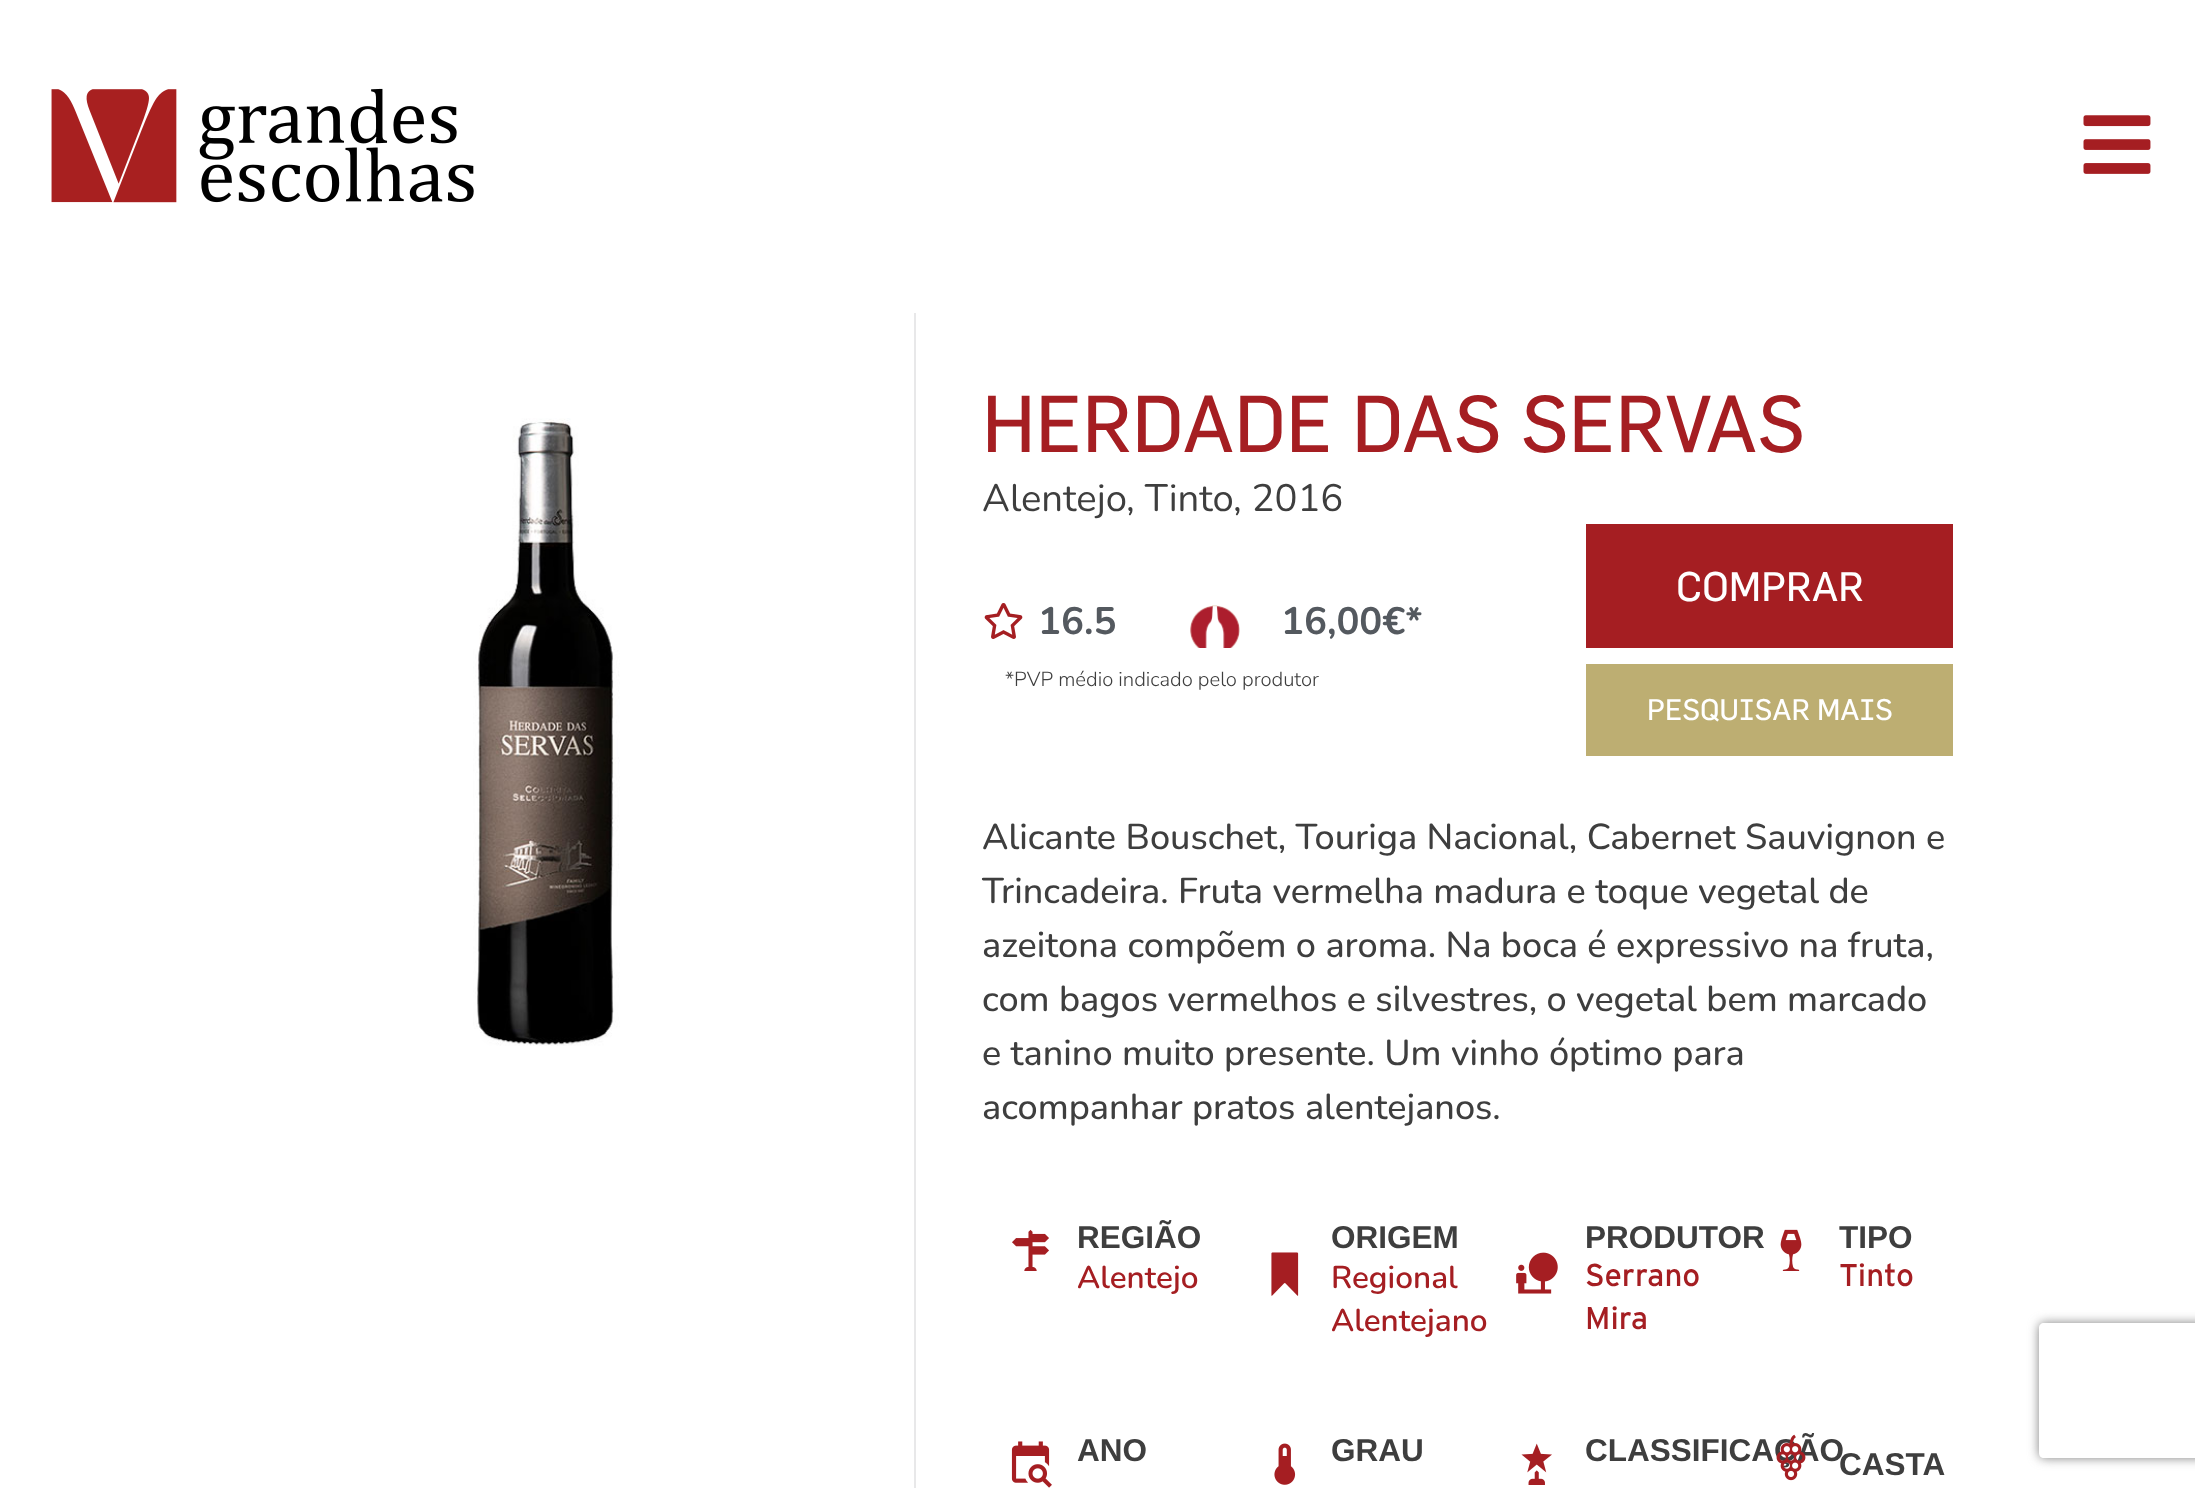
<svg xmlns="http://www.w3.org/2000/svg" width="2195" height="1488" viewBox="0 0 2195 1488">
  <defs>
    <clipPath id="clip1"><path d="M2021 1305H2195V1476H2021ZM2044 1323H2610C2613 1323 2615 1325 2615 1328V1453C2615 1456 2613 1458 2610 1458H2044C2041 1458 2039 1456 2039 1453V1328C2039 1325 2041 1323 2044 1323Z" clip-rule="evenodd"/></clipPath>
  </defs>
  <rect width="100%" height="100%" fill="rgb(255,255,255)"/>
  <image x="51" y="88" width="423" height="115" href="pic1.png"/>
  <image x="2083" y="115" width="68" height="59" href="pic2.png"/>
  <image x="473" y="418" width="147" height="628" href="pic3.png"/>
  <rect x="914" y="313" width="2" height="1175" fill="rgb(232,232,233)"/>
  <text x="982" y="452" font-family="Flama" font-size="78.75" font-weight="500" fill="rgb(165,30,34)">HERDADE DAS SERVAS</text>
  <text x="982" y="511" font-family="Nunito" font-size="38.25" fill="rgb(62,62,62)">Alentejo, Tinto, 2016</text>
  <image x="984" y="603" width="39" height="36" href="pic4.png"/>
  <text x="1038" y="634" font-family="Nunito" font-size="38.25" font-weight="bold" fill="rgb(84,89,95)">16.5</text>
  <image x="1190" y="605" width="50" height="43" href="pic5.png"/>
  <text x="1281" y="634" font-family="Nunito" font-size="38.25" font-weight="bold" fill="rgb(84,89,95)">16,00€*</text>
  <text x="1005" y="686" font-family="Nunito Sans" font-size="20.25" font-weight="300" fill="rgb(62,62,62)">*PVP médio indicado pelo produtor</text>
  <rect x="1586" y="524" width="367" height="124" fill="rgb(165,30,34)"/>
  <text x="1676" y="601" font-family="Flama" font-size="40.5" font-weight="500" fill="rgb(255,255,255)">COMPRAR</text>
  <rect x="1586" y="664" width="367" height="92" fill="rgb(189,174,114)"/>
  <text x="1647" y="720" font-family="Flama" font-size="29.25" font-weight="500" fill="rgb(255,255,255)">PESQUISAR MAIS</text>
  <g font-family="Nunito" font-size="36" font-weight="500" fill="rgb(62,62,62)">
    <text>
      <tspan x="982" y="849">Alicante Bouschet, Touriga Nacional, Cabernet Sauvignon e</tspan>
      <tspan x="982" y="903">Trincadeira. Fruta vermelha madura e toque vegetal de</tspan>
      <tspan x="982" y="957">azeitona compõem o aroma. Na boca é expressivo na fruta,</tspan>
      <tspan x="982" y="1011">com bagos vermelhos e silvestres, o vegetal bem marcado</tspan>
      <tspan x="982" y="1065">e tanino muito presente. Um vinho óptimo para</tspan>
      <tspan x="982" y="1119">acompanhar pratos alentejanos.</tspan>
    </text>
  </g>
  <image x="1012" y="1229" width="37" height="42" href="pic6.png"/>
  <text x="1077" y="1248" font-family="Liberation Sans" font-size="31.5" font-weight="bold" fill="rgb(62,62,62)">REGIÃO</text>
  <text x="1077" y="1288" font-family="Nunito" font-size="31.5" font-weight="600" fill="rgb(165,30,34)">Alentejo</text>
  <image x="1271" y="1252" width="28" height="44" href="pic7.png"/>
  <text x="1331" y="1248" font-family="Liberation Sans" font-size="31.5" font-weight="bold" fill="rgb(62,62,62)">ORIGEM</text>
  <g font-family="Nunito" font-size="31.5" font-weight="600" fill="rgb(165,30,34)">
    <text>
      <tspan x="1331" y="1288">Regional</tspan>
      <tspan x="1331" y="1331">Alentejano</tspan>
    </text>
  </g>
  <image x="1516" y="1252" width="42" height="42" href="pic8.png"/>
  <text x="1585" y="1248" font-family="Liberation Sans" font-size="31.5" font-weight="bold" fill="rgb(62,62,62)">PRODUTOR</text>
  <g font-family="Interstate" font-size="31.5" fill="rgb(165,30,34)">
    <text>
      <tspan x="1585" y="1286">Serrano</tspan>
      <tspan x="1585" y="1329">Mira</tspan>
    </text>
  </g>
  <image x="1780" y="1229" width="22" height="42" href="pic9.png"/>
  <text x="1839" y="1248" font-family="Liberation Sans" font-size="31.5" font-weight="bold" fill="rgb(62,62,62)">TIPO</text>
  <text x="1839" y="1286" font-family="Interstate" font-size="31.5" fill="rgb(165,30,34)">Tinto</text>
  <image x="1011" y="1441" width="41" height="47" href="pic10.png"/>
  <text x="1077" y="1461" font-family="Liberation Sans" font-size="31.5" font-weight="bold" fill="rgb(62,62,62)">ANO</text>
  <image x="1274" y="1443" width="22" height="42" href="pic11.png"/>
  <text x="1331" y="1461" font-family="Liberation Sans" font-size="31.5" font-weight="bold" fill="rgb(62,62,62)">GRAU</text>
  <image x="1521" y="1443" width="31" height="42" href="pic12.png"/>
  <text x="1585" y="1461" font-family="Liberation Sans" font-size="31.5" font-weight="bold" fill="rgb(62,62,62)">CLASSIFICAÇÃO</text>
  <image x="1776" y="1434" width="30" height="47" href="pic13.png"/>
  <text x="1839" y="1475" font-family="Liberation Sans" font-size="31.5" font-weight="bold" fill="rgb(62,62,62)">CASTA</text>
  <g clip-path="url(#clip1)">
    <rect x="2039" y="1323" width="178" height="135" rx="5" fill="rgb(128,128,128)" filter="blur(5.5px)"/>
  </g>
</svg>
